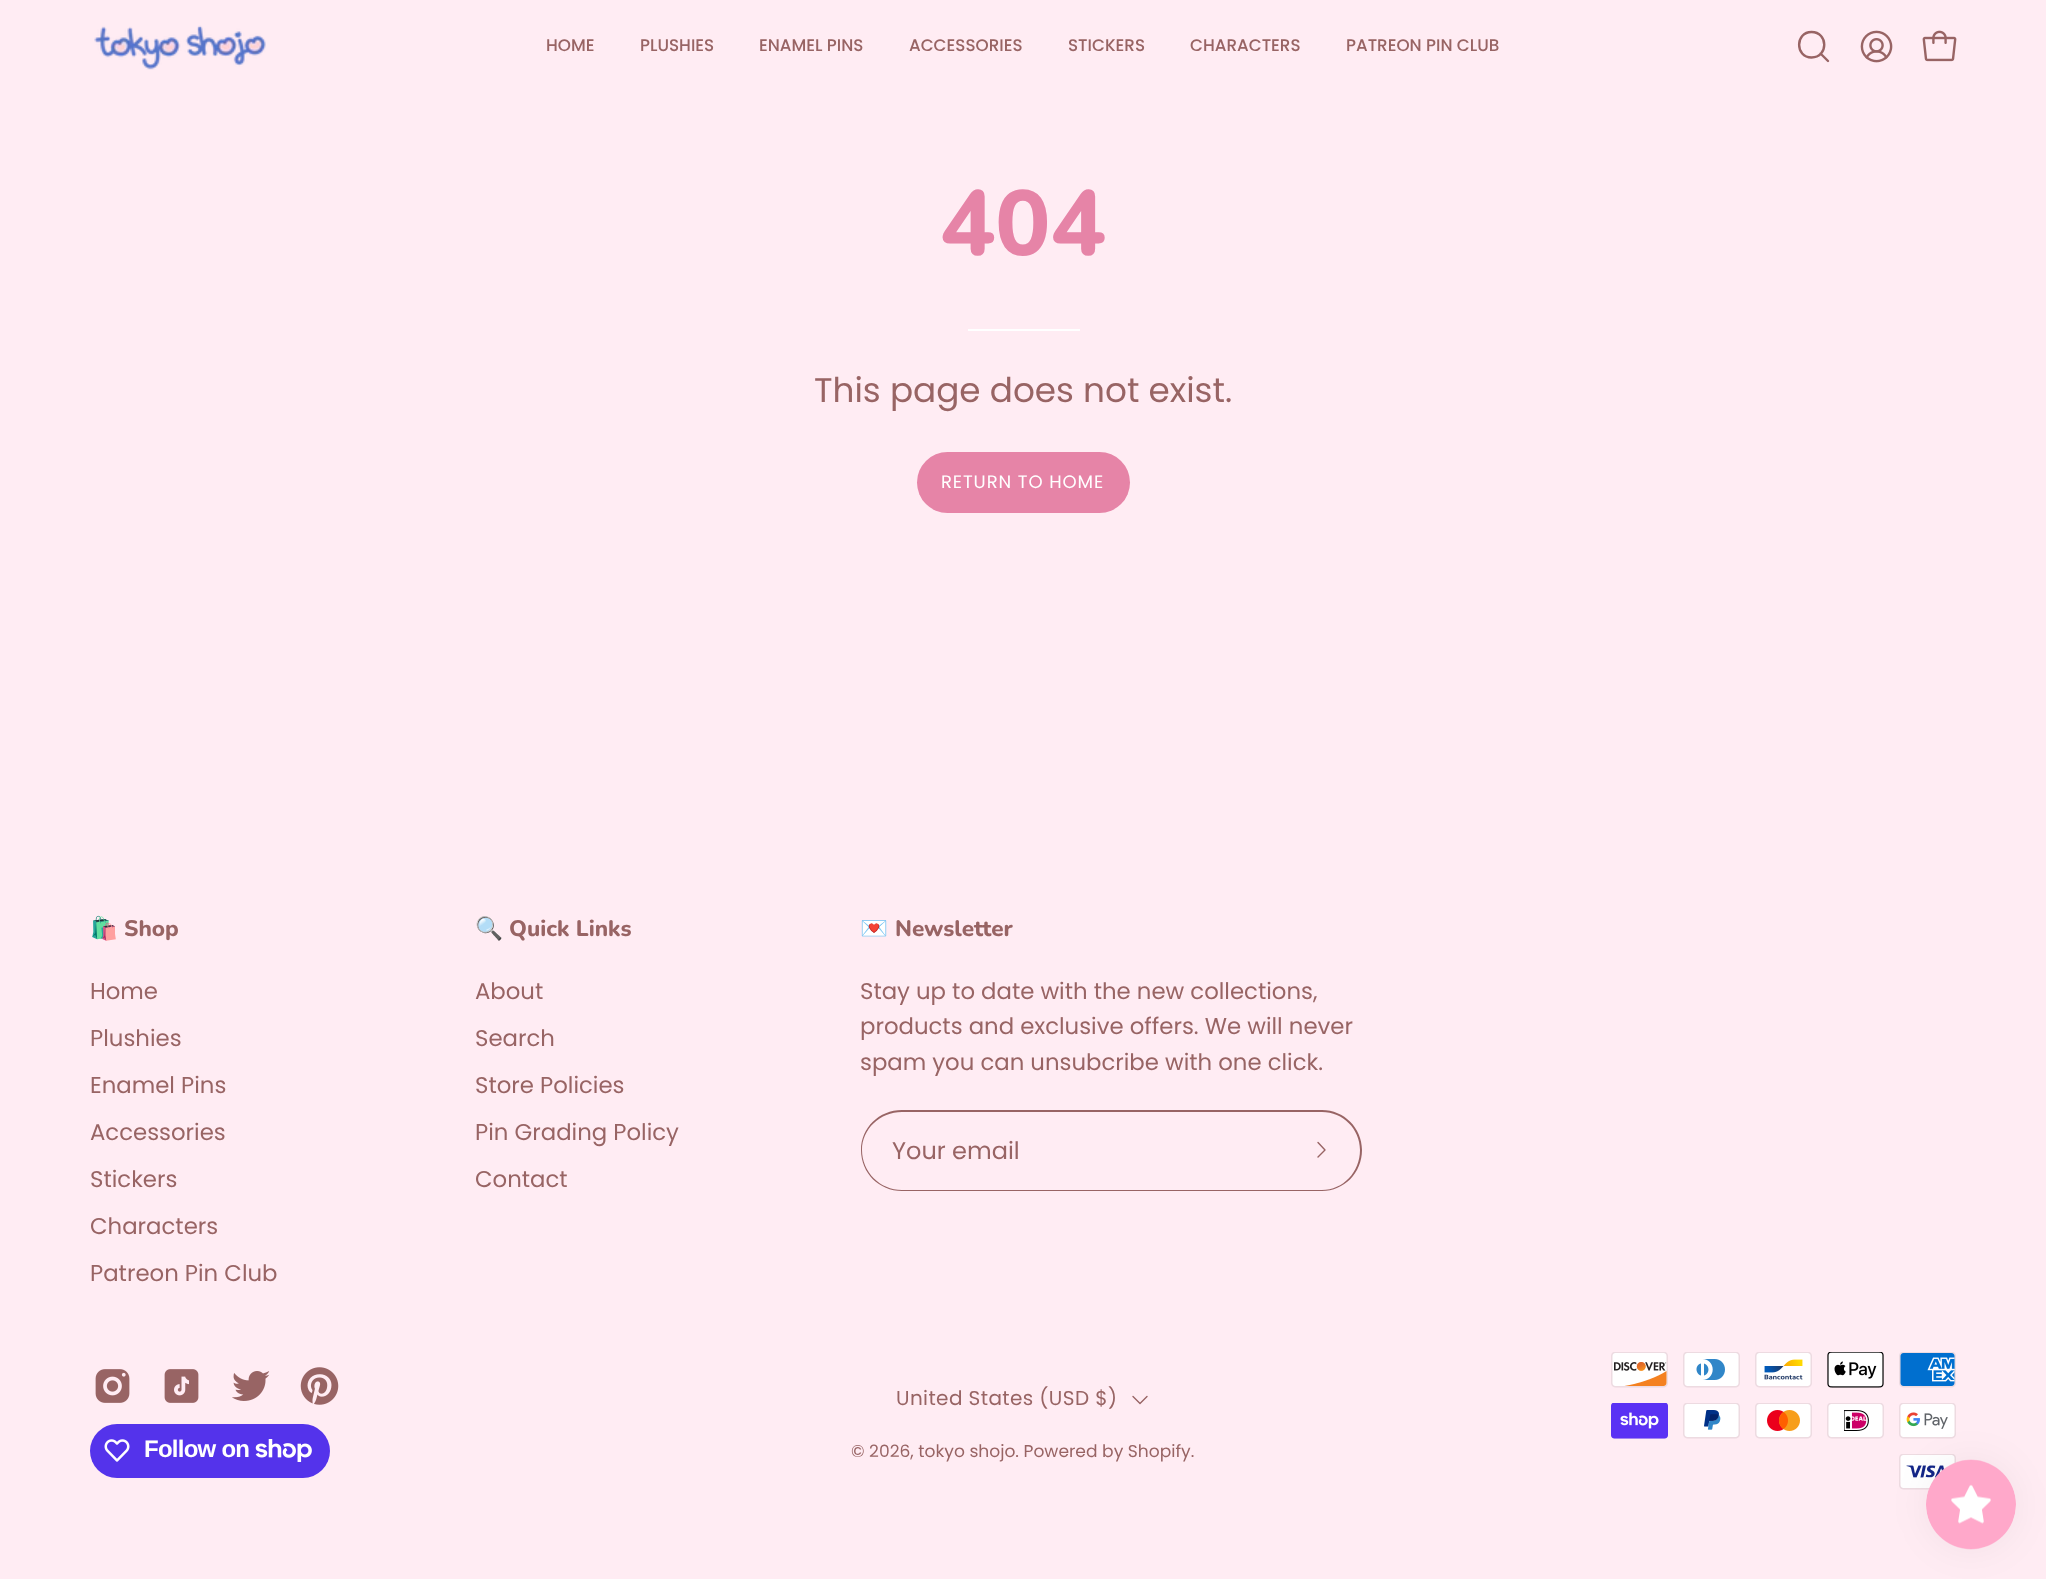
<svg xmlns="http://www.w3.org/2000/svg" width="2046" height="1579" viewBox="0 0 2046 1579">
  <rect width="100%" height="100%" fill="rgb(255,236,243)"/>
  <image x="94" y="25" width="172" height="45" href="pic1.png"/>
  <g font-family="Poppins" font-size="16.75" font-weight="500" fill="rgb(152,100,100)">
    <text x="546" y="51">HOME</text>
    <text x="640" y="51">PLUSHIES</text>
    <text x="759" y="51">ENAMEL PINS</text>
    <text x="909" y="51">ACCESSORIES</text>
    <text x="1068" y="51">STICKERS</text>
    <text x="1190" y="51">CHARACTERS</text>
    <text x="1346" y="51">PATREON PIN CLUB</text>
  </g>
  <path d="M1811.5 57.5C1828.5 57.5 1828.5 32 1811.5 32C1795 32 1795 57.5 1811.5 57.5ZM1820.5 53.5L1828 61" fill="none" stroke="rgb(152,100,100)" stroke-width="2.4" stroke-linecap="round" stroke-linejoin="round"/>
  <image x="1860" y="30" width="33" height="33" href="pic2.png"/>
  <image x="1922" y="30" width="35" height="32" href="pic3.png"/>
  <text x="940" y="255" font-family="Nunito" font-size="92" font-weight="800" fill="rgb(230,132,167)">404</text>
  <rect x="968" y="329" width="112" height="2" fill="rgb(255,255,255)"/>
  <text x="814" y="402" font-family="Poppins" font-size="34.25" fill="rgb(152,100,100)">This page does not exist.</text>
  <rect x="917" y="452" width="213" height="61" rx="30.5" fill="rgb(230,132,167)"/>
  <text x="941" y="488" font-family="Poppins" font-size="18" letter-spacing="0.9" fill="rgb(255,255,255)">RETURN TO HOME</text>
  <text x="90" y="936" font-family="Noto Color Emoji" font-size="22.5" font-weight="bold" fill="rgb(152,100,100)">🛍️</text>
  <text x="124" y="936" font-family="Nunito" font-size="22.5" font-weight="800" fill="rgb(152,100,100)">Shop</text>
  <g font-family="Poppins" font-size="22.8" fill="rgb(152,100,100)">
    <text x="90" y="999">Home</text>
    <text x="90" y="1046">Plushies</text>
    <text x="90" y="1093">Enamel Pins</text>
    <text x="90" y="1140">Accessories</text>
    <text x="90" y="1187">Stickers</text>
    <text x="90" y="1234">Characters</text>
    <text x="90" y="1281">Patreon Pin Club</text>
  </g>
  <text x="475" y="936" font-family="Noto Color Emoji" font-size="22.5" font-weight="bold" fill="rgb(152,100,100)">🔍</text>
  <text x="509" y="936" font-family="Nunito" font-size="22.5" font-weight="800" fill="rgb(152,100,100)">Quick Links</text>
  <g font-family="Poppins" font-size="22.8" fill="rgb(152,100,100)">
    <text x="475" y="999">About</text>
    <text x="475" y="1046">Search</text>
    <text x="475" y="1093">Store Policies</text>
    <text x="475" y="1140">Pin Grading Policy</text>
    <text x="475" y="1187">Contact</text>
  </g>
  <text x="860" y="936" font-family="Noto Color Emoji" font-size="22.5" font-weight="bold" fill="rgb(152,100,100)">💌</text>
  <text x="895" y="936" font-family="Nunito" font-size="22.5" font-weight="800" fill="rgb(152,100,100)">Newsletter</text>
  <g font-family="Poppins" font-size="22.8" fill="rgb(152,100,100)">
    <text>
      <tspan x="860" y="999">Stay up to date with the new collections,</tspan>
      <tspan x="860" y="1034">products and exclusive offers. We will never</tspan>
      <tspan x="860" y="1070">spam you can unsubcribe with one click.</tspan>
    </text>
  </g>
  <path d="M902 1110H1281V1191H902C879 1191 861 1173 861 1150C861 1128 879 1110 902 1110ZM902 1112H1281V1190H902C880 1190 862 1172 862 1150C862 1129 880 1112 902 1112Z" fill="rgb(152,100,100)" fill-rule="evenodd"/>
  <text x="892" y="1159" font-family="Poppins" font-size="24" fill="rgb(152,100,100)">Your email</text>
  <path d="M1281 1110H1322C1344 1110 1362 1128 1362 1150C1362 1173 1344 1191 1322 1191H1281ZM1281 1112H1322C1343 1112 1360 1129 1360 1150C1360 1172 1343 1190 1322 1190H1281Z" fill="rgb(152,100,100)" fill-rule="evenodd"/>
  <path d="M1318 1142.5L1325 1150L1318 1157" fill="none" stroke="rgb(152,100,100)" stroke-width="1.4" stroke-linecap="round" stroke-linejoin="round"/>
  <image x="95" y="1369" width="35" height="34" href="pic4.png"/>
  <image x="164" y="1369" width="35" height="34" href="pic5.png"/>
  <image x="232" y="1371" width="38" height="30" href="pic6.png"/>
  <image x="300" y="1367" width="39" height="38" href="pic7.png"/>
  <rect x="90" y="1424" width="240" height="54" rx="27" fill="rgb(84,51,235)"/>
  <image x="104" y="1439" width="26" height="23" href="pic8.png"/>
  <text x="144" y="1457" font-family="Liberation Sans" font-size="24" font-weight="bold" letter-spacing="-0.75" fill="rgb(255,255,255)">Follow on</text>
  <image x="255" y="1439" width="57" height="23" href="pic9.png"/>
  <text x="896" y="1405" font-family="Poppins" font-size="20" letter-spacing="0.4" fill="rgb(152,100,100)">United States (USD $)</text>
  <path d="M1147 1396.5L1140 1403.5L1133 1396.5" fill="none" stroke="rgb(152,100,100)" stroke-width="1.4" stroke-linecap="round" stroke-linejoin="round"/>
  <text x="851" y="1457" font-family="Poppins" font-size="17.1" fill="rgb(152,100,100)">© 2026, tokyo shojo. Powered by Shopify.</text>
  <image x="1611" y="1352" width="57" height="36" href="pic10.png"/>
  <image x="1683" y="1352" width="57" height="36" href="pic11.png"/>
  <image x="1755" y="1352" width="57" height="36" href="pic12.png"/>
  <image x="1827" y="1352" width="57" height="36" href="pic13.png"/>
  <image x="1899" y="1352" width="57" height="36" href="pic14.png"/>
  <image x="1611" y="1403" width="57" height="36" href="pic15.png"/>
  <image x="1683" y="1403" width="57" height="36" href="pic16.png"/>
  <image x="1755" y="1403" width="57" height="36" href="pic17.png"/>
  <image x="1827" y="1403" width="57" height="36" href="pic18.png"/>
  <image x="1899" y="1403" width="57" height="36" href="pic19.png"/>
  <image x="1899" y="1454" width="57" height="36" href="pic20.png"/>
  <rect x="1926" y="1460" width="90" height="90" rx="45" fill="rgba(0,0,0,0.05)" filter="blur(19px)"/>
  <image x="1926" y="1459" width="90" height="91" href="pic21.png"/>
</svg>
